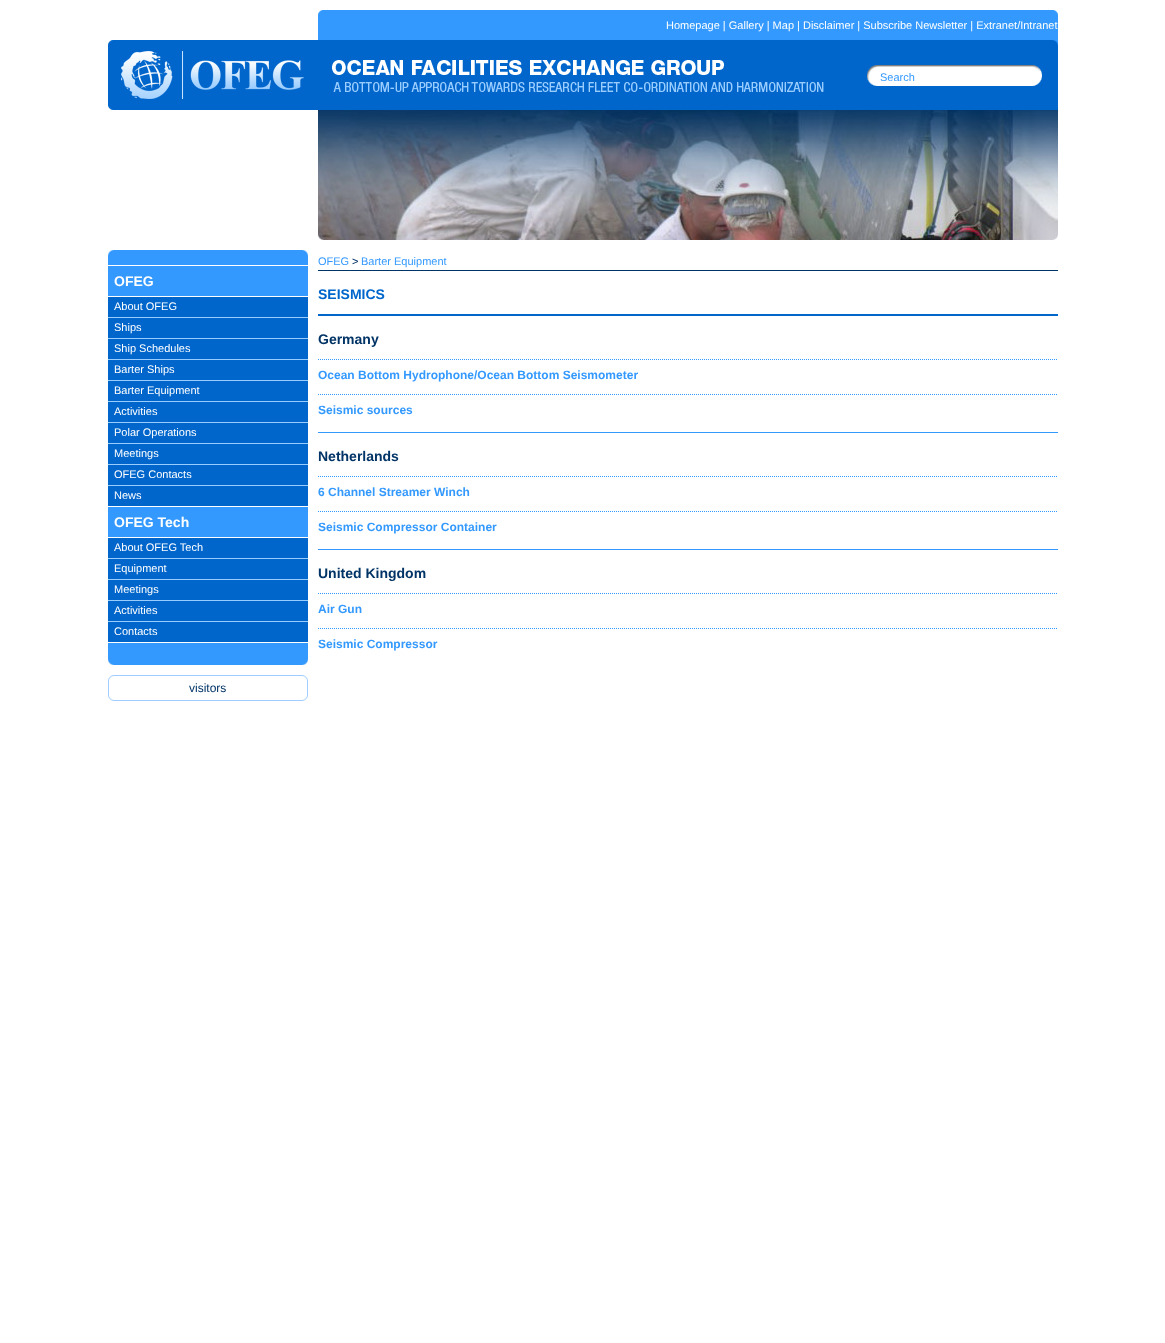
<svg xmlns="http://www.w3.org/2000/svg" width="1165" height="1343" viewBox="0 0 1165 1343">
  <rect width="100%" height="100%" fill="rgb(255,255,255)"/>
  <image x="318" y="10" width="740" height="30" href="pic1.png"/>
  <text x="666" y="29" font-family="Liberation Sans" font-size="11" fill="rgb(255,255,255)">Homepage | Gallery | Map | Disclaimer | Subscribe Newsletter | Extranet/Intranet</text>
  <image x="108" y="40" width="950" height="70" href="pic2.png"/>
  <image x="108" y="40" width="196" height="70" href="pic3.png"/>
  <text x="880" y="81" font-family="Liberation Sans" font-size="11" fill="rgb(51,153,255)">Search</text>
  <image x="108" y="250" width="200" height="15" href="pic4.png"/>
  <rect x="108" y="266" width="200" height="384" fill="rgb(51,153,255)"/>
  <rect x="108" y="296" width="200" height="1" fill="rgb(255,255,255)"/>
  <text x="114" y="286" font-family="Liberation Sans" font-size="14" font-weight="bold" fill="rgb(255,255,255)">OFEG</text>
  <rect x="108" y="297" width="200" height="20" fill="rgb(0,102,204)"/>
  <rect x="108" y="317" width="200" height="1" fill="rgb(153,204,255)"/>
  <text x="114" y="310" font-family="Liberation Sans" font-size="11" fill="rgb(255,255,255)">About OFEG</text>
  <rect x="108" y="318" width="200" height="20" fill="rgb(0,102,204)"/>
  <rect x="108" y="338" width="200" height="1" fill="rgb(153,204,255)"/>
  <text x="114" y="331" font-family="Liberation Sans" font-size="11" fill="rgb(255,255,255)">Ships</text>
  <rect x="108" y="339" width="200" height="20" fill="rgb(0,102,204)"/>
  <rect x="108" y="359" width="200" height="1" fill="rgb(153,204,255)"/>
  <text x="114" y="352" font-family="Liberation Sans" font-size="11" fill="rgb(255,255,255)">Ship Schedules</text>
  <rect x="108" y="360" width="200" height="20" fill="rgb(0,102,204)"/>
  <rect x="108" y="380" width="200" height="1" fill="rgb(153,204,255)"/>
  <text x="114" y="373" font-family="Liberation Sans" font-size="11" fill="rgb(255,255,255)">Barter Ships</text>
  <rect x="108" y="381" width="200" height="20" fill="rgb(0,102,204)"/>
  <rect x="108" y="401" width="200" height="1" fill="rgb(153,204,255)"/>
  <text x="114" y="394" font-family="Liberation Sans" font-size="11" fill="rgb(255,255,255)">Barter Equipment</text>
  <rect x="108" y="402" width="200" height="20" fill="rgb(0,102,204)"/>
  <rect x="108" y="422" width="200" height="1" fill="rgb(153,204,255)"/>
  <text x="114" y="415" font-family="Liberation Sans" font-size="11" fill="rgb(255,255,255)">Activities</text>
  <rect x="108" y="423" width="200" height="20" fill="rgb(0,102,204)"/>
  <rect x="108" y="443" width="200" height="1" fill="rgb(153,204,255)"/>
  <text x="114" y="436" font-family="Liberation Sans" font-size="11" fill="rgb(255,255,255)">Polar Operations</text>
  <rect x="108" y="444" width="200" height="20" fill="rgb(0,102,204)"/>
  <rect x="108" y="464" width="200" height="1" fill="rgb(153,204,255)"/>
  <text x="114" y="457" font-family="Liberation Sans" font-size="11" fill="rgb(255,255,255)">Meetings</text>
  <rect x="108" y="465" width="200" height="20" fill="rgb(0,102,204)"/>
  <rect x="108" y="485" width="200" height="1" fill="rgb(153,204,255)"/>
  <text x="114" y="478" font-family="Liberation Sans" font-size="11" fill="rgb(255,255,255)">OFEG Contacts</text>
  <rect x="108" y="486" width="200" height="20" fill="rgb(0,102,204)"/>
  <rect x="108" y="506" width="200" height="1" fill="rgb(255,255,255)"/>
  <text x="114" y="499" font-family="Liberation Sans" font-size="11" fill="rgb(255,255,255)">News</text>
  <rect x="108" y="537" width="200" height="1" fill="rgb(255,255,255)"/>
  <text x="114" y="527" font-family="Liberation Sans" font-size="14" font-weight="bold" fill="rgb(255,255,255)">OFEG Tech</text>
  <rect x="108" y="538" width="200" height="20" fill="rgb(0,102,204)"/>
  <rect x="108" y="558" width="200" height="1" fill="rgb(153,204,255)"/>
  <text x="114" y="551" font-family="Liberation Sans" font-size="11" fill="rgb(255,255,255)">About OFEG Tech</text>
  <rect x="108" y="559" width="200" height="20" fill="rgb(0,102,204)"/>
  <rect x="108" y="579" width="200" height="1" fill="rgb(153,204,255)"/>
  <text x="114" y="572" font-family="Liberation Sans" font-size="11" fill="rgb(255,255,255)">Equipment</text>
  <rect x="108" y="580" width="200" height="20" fill="rgb(0,102,204)"/>
  <rect x="108" y="600" width="200" height="1" fill="rgb(153,204,255)"/>
  <text x="114" y="593" font-family="Liberation Sans" font-size="11" fill="rgb(255,255,255)">Meetings</text>
  <rect x="108" y="601" width="200" height="20" fill="rgb(0,102,204)"/>
  <rect x="108" y="621" width="200" height="1" fill="rgb(153,204,255)"/>
  <text x="114" y="614" font-family="Liberation Sans" font-size="11" fill="rgb(255,255,255)">Activities</text>
  <rect x="108" y="622" width="200" height="20" fill="rgb(0,102,204)"/>
  <rect x="108" y="642" width="200" height="1" fill="rgb(255,255,255)"/>
  <text x="114" y="635" font-family="Liberation Sans" font-size="11" fill="rgb(255,255,255)">Contacts</text>
  <image x="108" y="650" width="200" height="15" href="pic5.png"/>
  <rect x="108.5" y="675.5" width="199" height="25" rx="5.5" fill="none" stroke="rgb(159,205,255)"/>
  <text x="189" y="692" font-family="Liberation Sans" font-size="12" fill="rgb(0,51,102)">visitors</text>
  <image x="318" y="110" width="740" height="130" href="pic6.png"/>
  <rect x="318" y="270" width="740" height="1" fill="rgb(0,51,102)"/>
  <text x="318" y="265" font-family="Liberation Sans" font-size="11" fill="rgb(51,153,255)">OFEG</text>
  <text x="352" y="265" font-family="Liberation Sans" font-size="11" fill="rgb(0,51,102)">&gt;</text>
  <text x="361" y="265" font-family="Liberation Sans" font-size="11" fill="rgb(51,153,255)">Barter Equipment</text>
  <rect x="318" y="314" width="740" height="2" fill="rgb(0,102,204)"/>
  <text x="318" y="299" font-family="Liberation Sans" font-size="14" font-weight="bold" fill="rgb(0,102,204)">SEISMICS</text>
  <text x="318" y="344" font-family="Liberation Sans" font-size="14" font-weight="bold" fill="rgb(0,51,102)">Germany</text>
  <path d="M318 359.5H1058" fill="none" stroke="rgb(51,153,255)" stroke-dasharray="1 1"/>
  <text x="318" y="379" font-family="Liberation Sans" font-size="12" font-weight="bold" fill="rgb(51,153,255)">Ocean Bottom Hydrophone/Ocean Bottom Seismometer</text>
  <path d="M318 394.5H1058" fill="none" stroke="rgb(51,153,255)" stroke-dasharray="1 1"/>
  <text x="318" y="414" font-family="Liberation Sans" font-size="12" font-weight="bold" fill="rgb(51,153,255)">Seismic sources</text>
  <rect x="318" y="432" width="740" height="1" fill="rgb(51,153,255)"/>
  <text x="318" y="461" font-family="Liberation Sans" font-size="14" font-weight="bold" fill="rgb(0,51,102)">Netherlands</text>
  <path d="M318 476.5H1058" fill="none" stroke="rgb(51,153,255)" stroke-dasharray="1 1"/>
  <text x="318" y="496" font-family="Liberation Sans" font-size="12" font-weight="bold" fill="rgb(51,153,255)">6 Channel Streamer Winch</text>
  <path d="M318 511.5H1058" fill="none" stroke="rgb(51,153,255)" stroke-dasharray="1 1"/>
  <text x="318" y="531" font-family="Liberation Sans" font-size="12" font-weight="bold" fill="rgb(51,153,255)">Seismic Compressor Container</text>
  <rect x="318" y="549" width="740" height="1" fill="rgb(51,153,255)"/>
  <text x="318" y="578" font-family="Liberation Sans" font-size="14" font-weight="bold" fill="rgb(0,51,102)">United Kingdom</text>
  <path d="M318 593.5H1058" fill="none" stroke="rgb(51,153,255)" stroke-dasharray="1 1"/>
  <text x="318" y="613" font-family="Liberation Sans" font-size="12" font-weight="bold" fill="rgb(51,153,255)">Air Gun</text>
  <path d="M318 628.5H1058" fill="none" stroke="rgb(51,153,255)" stroke-dasharray="1 1"/>
  <text x="318" y="648" font-family="Liberation Sans" font-size="12" font-weight="bold" fill="rgb(51,153,255)">Seismic Compressor</text>
</svg>
